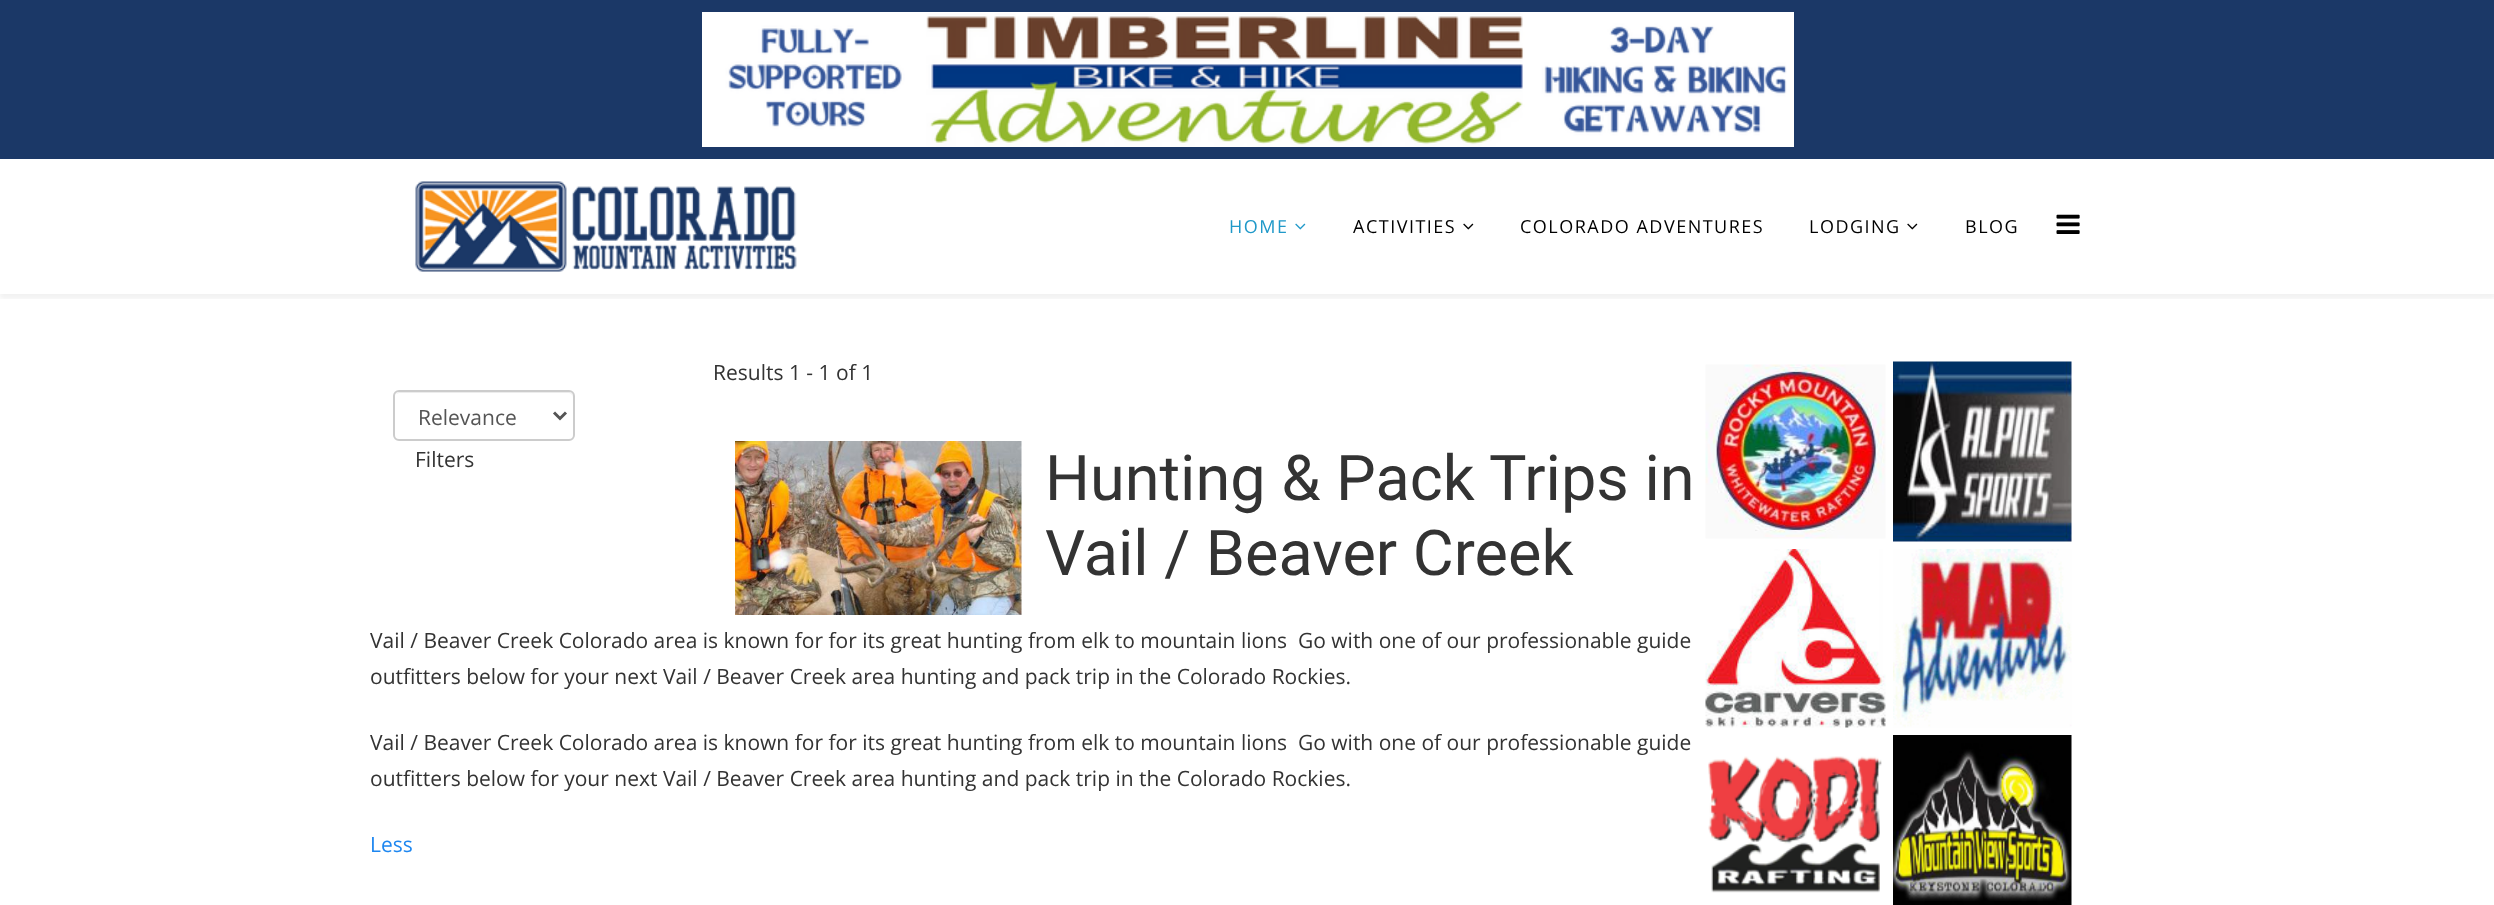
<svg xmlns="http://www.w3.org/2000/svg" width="2494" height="905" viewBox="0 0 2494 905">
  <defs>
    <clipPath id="clip1"><rect x="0" y="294" width="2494" height="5"/></clipPath>
  </defs>
  <rect width="100%" height="100%" fill="rgb(255,255,255)"/>
  <rect x="0" y="0" width="2494" height="159" fill="rgb(27,56,103)"/>
  <image x="702" y="12" width="1092" height="135" href="pic1.png"/>
  <g clip-path="url(#clip1)">
    <rect x="0" y="164" width="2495" height="135" fill="rgba(0,0,0,0.05)" filter="blur(2px)"/>
  </g>
  <image x="415" y="181" width="382" height="91" href="pic2.png"/>
  <text x="1229" y="233" font-family="Open Sans" font-size="18" letter-spacing="1.5" fill="rgb(32,153,201)">HOME</text>
  <image x="1295" y="223" width="11" height="7" href="pic3.png"/>
  <text x="1353" y="233" font-family="Open Sans" font-size="18" letter-spacing="1.5" fill="rgb(0,0,0)">ACTIVITIES</text>
  <image x="1463" y="223" width="11" height="7" href="pic4.png"/>
  <g font-family="Open Sans" font-size="18" letter-spacing="1.5" fill="rgb(0,0,0)">
    <text x="1520" y="233">COLORADO ADVENTURES</text>
    <text x="1809" y="233">LODGING</text>
  </g>
  <image x="1907" y="223" width="11" height="7" href="pic4.png"/>
  <text x="1965" y="233" font-family="Open Sans" font-size="18" letter-spacing="1.5" fill="rgb(0,0,0)">BLOG</text>
  <image x="2056" y="214" width="24" height="20" href="pic5.png"/>
  <text x="713" y="380" font-family="Open Sans" font-size="21" fill="rgb(51,51,51)">Results 1 - 1 of 1</text>
  <path d="M399 393H568C571 393 573 395 573 398V397C573 394 571 392 568 392H400C398 392 397 393 396 394Z" fill="rgb(236,236,236)"/>
  <rect x="394" y="391" width="180" height="49" rx="5" fill="none" stroke="rgb(204,204,204)" stroke-width="2"/>
  <path d="M554 412.5L560 418.5L566 412.5" fill="none" stroke="rgb(85,85,85)" stroke-width="3"/>
  <text x="418" y="425" font-family="Open Sans" font-size="21" fill="rgb(85,85,85)">Relevance</text>
  <text x="415" y="467" font-family="Open Sans" font-size="21" fill="rgb(51,51,51)">Filters</text>
  <image x="735" y="441" width="287" height="174" href="pic6.png"/>
  <g font-family="Roboto" font-size="63" fill="rgb(51,51,51)">
    <text>
      <tspan x="1045" y="500">Hunting &amp; Pack Trips in</tspan>
      <tspan x="1045" y="575">Vail / Beaver Creek</tspan>
    </text>
  </g>
  <g font-family="Open Sans" font-size="21" fill="rgb(51,51,51)">
    <text xml:space="preserve"><tspan x="370" y="648">Vail / Beaver Creek Colorado area is known for for its great hunting from elk to mountain lions  Go with one of our professionable guide</tspan><tspan x="370" y="684">outfitters below for your next Vail / Beaver Creek area hunting and pack trip in the Colorado Rockies.</tspan></text>
    <text xml:space="preserve"><tspan x="370" y="750">Vail / Beaver Creek Colorado area is known for for its great hunting from elk to mountain lions  Go with one of our professionable guide</tspan><tspan x="370" y="786">outfitters below for your next Vail / Beaver Creek area hunting and pack trip in the Colorado Rockies.</tspan></text>
  </g>
  <text x="370" y="852" font-family="Open Sans" font-size="21" fill="rgb(30,135,240)">Less</text>
  <image x="1705" y="364" width="181" height="175" href="pic7.png"/>
  <image x="1893" y="361" width="179" height="181" href="pic8.png"/>
  <image x="1705" y="549" width="181" height="179" href="pic9.png"/>
  <image x="1893" y="549" width="179" height="179" href="pic10.png"/>
  <image x="1708" y="756" width="174" height="137" href="pic11.png"/>
  <image x="1893" y="735" width="179" height="170" href="pic12.png"/>
</svg>
